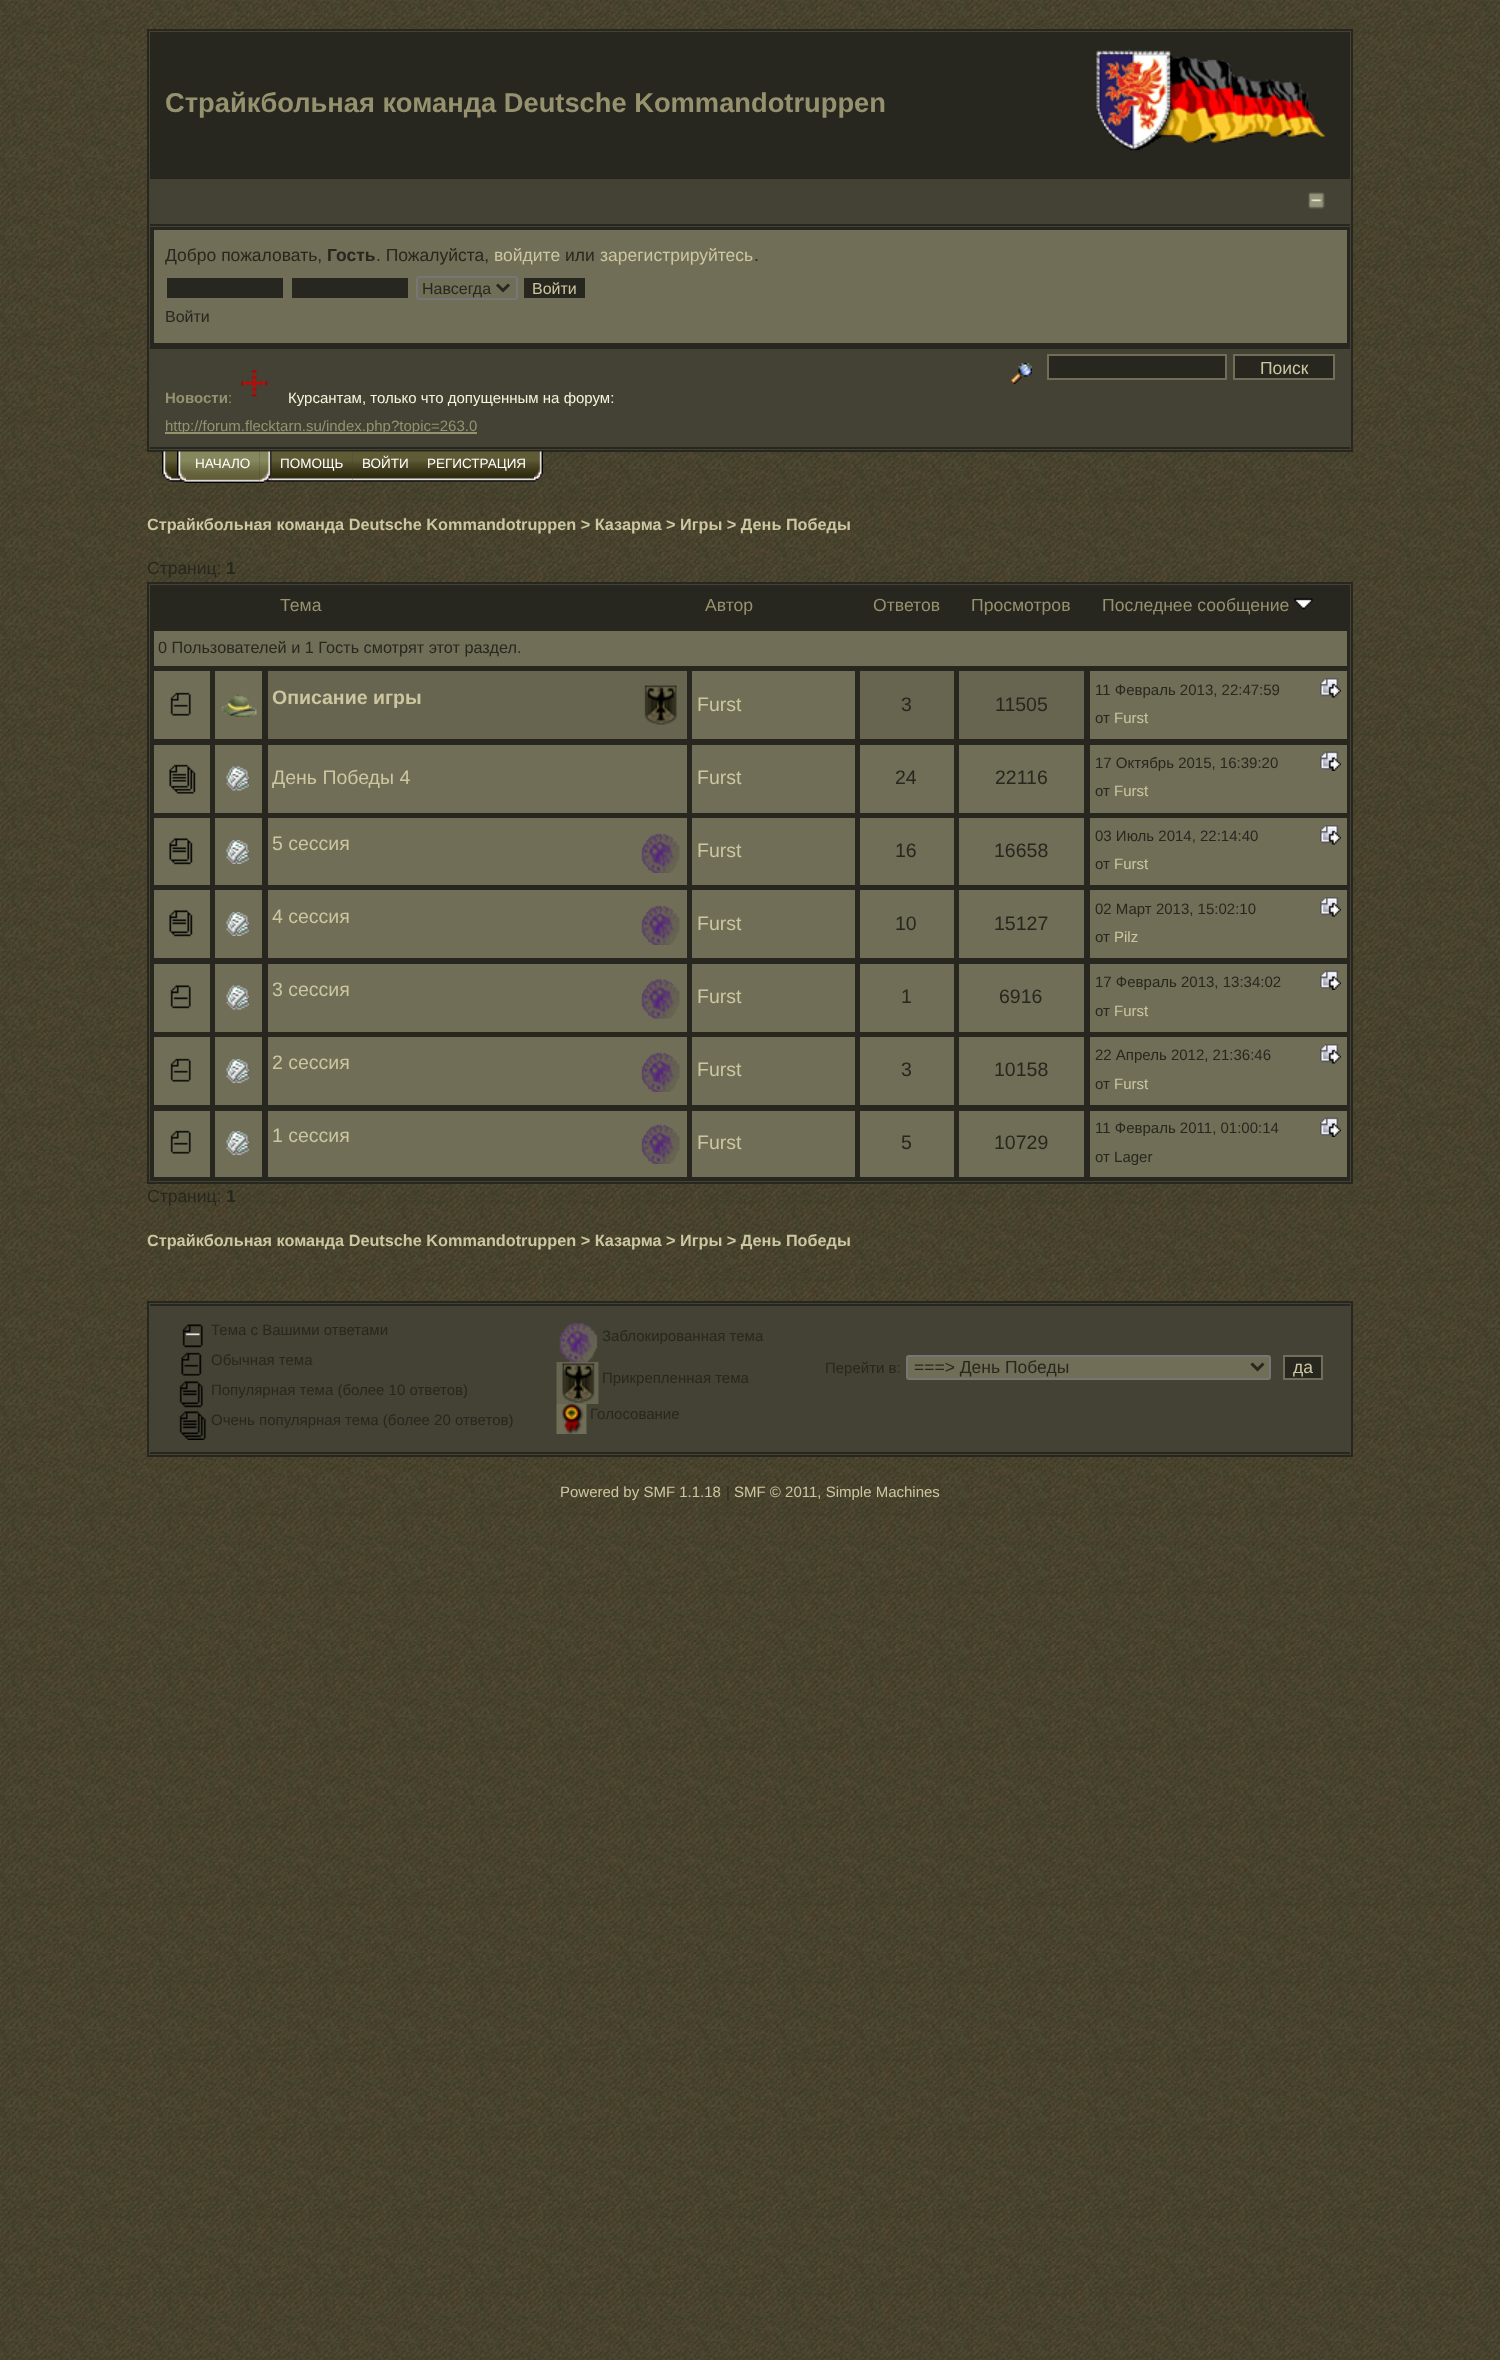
<svg xmlns="http://www.w3.org/2000/svg" width="1500" height="2360" viewBox="0 0 1500 2360">
  <rect width="100%" height="100%" fill="rgb(255,255,255)"/>
  <image x="0" y="0" width="1500" height="2360" href="pic1.png"/>
  <rect x="148" y="30" width="1204" height="421" fill="rgb(67,66,52)" stroke="rgb(40,39,31)" stroke-width="2"/>
  <rect x="150" y="32" width="867" height="145" fill="rgb(40,39,31)"/>
  <text x="165" y="112" font-family="Liberation Sans" font-size="27.3" font-weight="bold" fill="rgb(150,146,111)">Страйкбольная команда Deutsche Kommandotruppen</text>
  <rect x="1017" y="32" width="333" height="145" fill="rgb(40,39,31)"/>
  <image x="1096" y="49" width="229" height="102" href="pic2.png"/>
  <rect x="150" y="177" width="1200" height="2" fill="rgb(40,39,31)"/>
  <rect x="150" y="224" width="1200" height="2" fill="rgb(40,39,31)"/>
  <image x="1308" y="192" width="17" height="17" href="pic3.png"/>
  <rect x="150" y="227" width="1200" height="120" fill="rgb(40,39,31)"/>
  <rect x="154" y="230" width="1193" height="113" fill="rgb(112,110,87)"/>
  <text x="165" y="261" font-family="Liberation Sans" font-size="17.5" fill="rgb(40,39,31)">Добро пожаловать,</text>
  <text x="327" y="261" font-family="Liberation Sans" font-size="17.5" font-weight="bold" fill="rgb(40,39,31)">Гость</text>
  <text x="376" y="261" font-family="Liberation Sans" font-size="17.5" fill="rgb(40,39,31)">. Пожалуйста,</text>
  <text x="494" y="261" font-family="Liberation Sans" font-size="17.5" fill="rgb(204,199,161)">войдите</text>
  <text x="565" y="261" font-family="Liberation Sans" font-size="17.5" fill="rgb(40,39,31)">или</text>
  <text x="600" y="261" font-family="Liberation Sans" font-size="17.5" fill="rgb(204,199,161)">зарегистрируйтесь</text>
  <text x="754" y="261" font-family="Liberation Sans" font-size="17.5" fill="rgb(40,39,31)">.</text>
  <rect x="167" y="278" width="116" height="20" fill="rgb(40,39,31)"/>
  <rect x="292" y="278" width="116" height="20" fill="rgb(40,39,31)"/>
  <rect x="417" y="277" width="100" height="22" rx="2" fill="none" stroke="rgb(118,118,118)" stroke-width="2"/>
  <path d="M497 284.5L503 290.5L509 284.5" fill="none" stroke="rgb(40,39,31)" stroke-width="3"/>
  <text x="422" y="294" font-family="Liberation Sans" font-size="16" fill="rgb(40,39,31)">Навсегда</text>
  <rect x="524" y="278" width="61" height="20" fill="rgb(40,39,31)"/>
  <text x="532" y="294" font-family="Liberation Sans" font-size="16" fill="rgb(204,199,161)">Войти</text>
  <text x="165" y="322" font-family="Liberation Sans" font-size="16" fill="rgb(40,39,31)">Войти</text>
  <image x="1011" y="363" width="21" height="21" href="pic4.png"/>
  <rect x="1048" y="355" width="178" height="24" fill="rgb(40,39,31)" stroke="rgb(112,110,87)" stroke-width="2"/>
  <rect x="1234" y="355" width="100" height="24" fill="rgb(40,39,31)" stroke="rgb(112,110,87)" stroke-width="2"/>
  <text x="1260" y="374" font-family="Liberation Sans" font-size="17.5" fill="rgb(204,199,161)">Поиск</text>
  <rect x="150" y="347" width="1200" height="2" fill="rgb(40,39,31)"/>
  <rect x="150" y="447" width="1200" height="2" fill="rgb(40,39,31)"/>
  <text x="165" y="403" font-family="Liberation Sans" font-size="15" font-weight="bold" fill="rgb(150,146,111)">Новости</text>
  <text x="228" y="403" font-family="Liberation Sans" font-size="15" fill="rgb(150,146,111)">:</text>
  <image x="241" y="370" width="27" height="27" href="pic5.png"/>
  <text x="288" y="403" font-family="Liberation Sans" font-size="15" fill="rgb(245,245,220)">Курсантам, только что допущенным на форум:</text>
  <rect x="165" y="432" width="312" height="2" fill="rgb(150,146,111)"/>
  <text x="165" y="431" font-family="Liberation Sans" font-size="15" fill="rgb(150,146,111)">http://forum.flecktarn.su/index.php?topic=263.0</text>
  <image x="162" y="451" width="15" height="31" href="pic6.png"/>
  <image x="177" y="451" width="9" height="32" href="pic7.png"/>
  <image x="186" y="451" width="74" height="32" href="pic8.png"/>
  <text x="195" y="468" font-family="Liberation Sans" font-size="13.5" fill="rgb(255,255,255)">НАЧАЛО</text>
  <image x="259" y="451" width="13" height="32" href="pic9.png"/>
  <image x="271" y="451" width="82" height="31" href="pic10.png"/>
  <text x="280" y="468" font-family="Liberation Sans" font-size="13.5" fill="rgb(255,255,255)">ПОМОЩЬ</text>
  <image x="352" y="451" width="65" height="31" href="pic11.png"/>
  <text x="362" y="468" font-family="Liberation Sans" font-size="13.5" fill="rgb(255,255,255)">ВОЙТИ</text>
  <image x="417" y="451" width="117" height="31" href="pic12.png"/>
  <text x="427" y="468" font-family="Liberation Sans" font-size="13.5" fill="rgb(255,255,255)">РЕГИСТРАЦИЯ</text>
  <image x="534" y="451" width="9" height="31" href="pic13.png"/>
  <text x="147" y="530" font-family="Liberation Sans" font-size="16.25" font-weight="bold" fill="rgb(204,199,161)">Страйкбольная команда Deutsche Kommandotruppen &gt; Казарма &gt; Игры &gt; День Победы</text>
  <text x="147" y="574" font-family="Liberation Sans" font-size="17.5" fill="rgb(40,39,31)">Страниц:</text>
  <text x="226" y="574" font-family="Liberation Sans" font-size="17.5" font-weight="bold" fill="rgb(40,39,31)">1</text>
  <rect x="148" y="583" width="1204" height="600" fill="rgb(67,66,52)" stroke="rgb(40,39,31)" stroke-width="2"/>
  <rect x="150" y="585" width="1200" height="596" fill="rgb(40,39,31)"/>
  <g font-family="Liberation Sans" font-size="17.6" fill="rgb(150,146,111)">
    <text x="280" y="611">Тема</text>
    <text x="705" y="611">Автор</text>
    <text x="873" y="611">Ответов</text>
    <text x="971" y="611">Просмотров</text>
    <text x="1102" y="611">Последнее сообщение</text>
  </g>
  <image x="1294" y="598" width="19" height="12" href="pic14.png"/>
  <rect x="154" y="631" width="1193" height="35" fill="rgb(112,110,87)"/>
  <text x="158" y="653" font-family="Liberation Sans" font-size="16.25" fill="rgb(40,39,31)">0 Пользователей и 1 Гость смотрят этот раздел.</text>
  <rect x="154" y="671" width="56" height="68" fill="rgb(112,110,87)"/>
  <image x="170" y="692" width="21" height="24" href="pic15.png"/>
  <rect x="215" y="671" width="47" height="68" fill="rgb(112,110,87)"/>
  <image x="220" y="694" width="37" height="23" href="pic16.png"/>
  <rect x="268" y="671" width="419" height="68" fill="rgb(103,101,80)"/>
  <text x="272" y="704" font-family="Liberation Sans" font-size="19.5" font-weight="bold" fill="rgb(204,199,161)">Описание игры</text>
  <image x="644" y="685" width="33" height="40" href="pic17.png"/>
  <rect x="692" y="671" width="163" height="68" fill="rgb(112,110,87)"/>
  <text x="697" y="711" font-family="Liberation Sans" font-size="19.5" fill="rgb(204,199,161)">Furst</text>
  <rect x="860" y="671" width="94" height="68" fill="rgb(103,101,80)"/>
  <text x="901" y="711" font-family="Liberation Sans" font-size="19.5" fill="rgb(40,39,31)">3</text>
  <rect x="959" y="671" width="125" height="68" fill="rgb(103,101,80)"/>
  <text x="995" y="711" font-family="Liberation Sans" font-size="19.5" fill="rgb(40,39,31)">11505</text>
  <rect x="1090" y="671" width="257" height="68" fill="rgb(112,110,87)"/>
  <text x="1095" y="695" font-family="Liberation Sans" font-size="15" fill="rgb(40,39,31)">11 Февраль 2013, 22:47:59</text>
  <image x="1320" y="678" width="21" height="20" href="pic18.png"/>
  <text x="1095" y="723" font-family="Liberation Sans" font-size="15" fill="rgb(40,39,31)">от</text>
  <text x="1114" y="723" font-family="Liberation Sans" font-size="15" fill="rgb(204,199,161)">Furst</text>
  <rect x="154" y="745" width="56" height="68" fill="rgb(112,110,87)"/>
  <image x="169" y="764" width="27" height="30" href="pic19.png"/>
  <rect x="215" y="745" width="47" height="68" fill="rgb(112,110,87)"/>
  <image x="226" y="766" width="23" height="25" href="pic20.png"/>
  <rect x="268" y="745" width="419" height="68" fill="rgb(112,110,87)"/>
  <text x="272" y="784" font-family="Liberation Sans" font-size="19.5" fill="rgb(204,199,161)">День Победы 4</text>
  <rect x="692" y="745" width="163" height="68" fill="rgb(112,110,87)"/>
  <text x="697" y="784" font-family="Liberation Sans" font-size="19.5" fill="rgb(204,199,161)">Furst</text>
  <rect x="860" y="745" width="94" height="68" fill="rgb(112,110,87)"/>
  <text x="895" y="784" font-family="Liberation Sans" font-size="19.5" fill="rgb(40,39,31)">24</text>
  <rect x="959" y="745" width="125" height="68" fill="rgb(112,110,87)"/>
  <text x="995" y="784" font-family="Liberation Sans" font-size="19.5" fill="rgb(40,39,31)">22116</text>
  <rect x="1090" y="745" width="257" height="68" fill="rgb(112,110,87)"/>
  <text x="1095" y="768" font-family="Liberation Sans" font-size="15" fill="rgb(40,39,31)">17 Октябрь 2015, 16:39:20</text>
  <image x="1320" y="751" width="21" height="20" href="pic21.png"/>
  <text x="1095" y="796" font-family="Liberation Sans" font-size="15" fill="rgb(40,39,31)">от</text>
  <text x="1114" y="796" font-family="Liberation Sans" font-size="15" fill="rgb(204,199,161)">Furst</text>
  <rect x="154" y="818" width="56" height="67" fill="rgb(112,110,87)"/>
  <image x="169" y="838" width="24" height="27" href="pic22.png"/>
  <rect x="215" y="818" width="47" height="67" fill="rgb(112,110,87)"/>
  <image x="226" y="840" width="23" height="24" href="pic23.png"/>
  <rect x="268" y="818" width="419" height="67" fill="rgb(112,110,87)"/>
  <text x="272" y="850" font-family="Liberation Sans" font-size="19.5" fill="rgb(204,199,161)">5 сессия</text>
  <image x="641" y="833" width="39" height="40" href="pic24.png"/>
  <rect x="692" y="818" width="163" height="67" fill="rgb(112,110,87)"/>
  <text x="697" y="857" font-family="Liberation Sans" font-size="19.5" fill="rgb(204,199,161)">Furst</text>
  <rect x="860" y="818" width="94" height="67" fill="rgb(112,110,87)"/>
  <text x="895" y="857" font-family="Liberation Sans" font-size="19.5" fill="rgb(40,39,31)">16</text>
  <rect x="959" y="818" width="125" height="67" fill="rgb(112,110,87)"/>
  <text x="994" y="857" font-family="Liberation Sans" font-size="19.5" fill="rgb(40,39,31)">16658</text>
  <rect x="1090" y="818" width="257" height="67" fill="rgb(112,110,87)"/>
  <text x="1095" y="841" font-family="Liberation Sans" font-size="15" fill="rgb(40,39,31)">03 Июль 2014, 22:14:40</text>
  <image x="1320" y="825" width="21" height="20" href="pic18.png"/>
  <text x="1095" y="869" font-family="Liberation Sans" font-size="15" fill="rgb(40,39,31)">от</text>
  <text x="1114" y="869" font-family="Liberation Sans" font-size="15" fill="rgb(204,199,161)">Furst</text>
  <rect x="154" y="890" width="56" height="68" fill="rgb(112,110,87)"/>
  <image x="169" y="910" width="24" height="27" href="pic22.png"/>
  <rect x="215" y="890" width="47" height="68" fill="rgb(112,110,87)"/>
  <image x="226" y="912" width="23" height="24" href="pic23.png"/>
  <rect x="268" y="890" width="419" height="68" fill="rgb(112,110,87)"/>
  <text x="272" y="923" font-family="Liberation Sans" font-size="19.5" fill="rgb(204,199,161)">4 сессия</text>
  <image x="641" y="905" width="39" height="40" href="pic24.png"/>
  <rect x="692" y="890" width="163" height="68" fill="rgb(112,110,87)"/>
  <text x="697" y="930" font-family="Liberation Sans" font-size="19.5" fill="rgb(204,199,161)">Furst</text>
  <rect x="860" y="890" width="94" height="68" fill="rgb(112,110,87)"/>
  <text x="895" y="930" font-family="Liberation Sans" font-size="19.5" fill="rgb(40,39,31)">10</text>
  <rect x="959" y="890" width="125" height="68" fill="rgb(112,110,87)"/>
  <text x="994" y="930" font-family="Liberation Sans" font-size="19.5" fill="rgb(40,39,31)">15127</text>
  <rect x="1090" y="890" width="257" height="68" fill="rgb(112,110,87)"/>
  <text x="1095" y="914" font-family="Liberation Sans" font-size="15" fill="rgb(40,39,31)">02 Март 2013, 15:02:10</text>
  <image x="1320" y="897" width="21" height="20" href="pic18.png"/>
  <text x="1095" y="942" font-family="Liberation Sans" font-size="15" fill="rgb(40,39,31)">от</text>
  <text x="1114" y="942" font-family="Liberation Sans" font-size="15" fill="rgb(204,199,161)">Pilz</text>
  <rect x="154" y="964" width="56" height="68" fill="rgb(112,110,87)"/>
  <image x="170" y="985" width="21" height="24" href="pic25.png"/>
  <rect x="215" y="964" width="47" height="68" fill="rgb(112,110,87)"/>
  <image x="226" y="985" width="23" height="25" href="pic20.png"/>
  <rect x="268" y="964" width="419" height="68" fill="rgb(112,110,87)"/>
  <text x="272" y="996" font-family="Liberation Sans" font-size="19.5" fill="rgb(204,199,161)">3 сессия</text>
  <image x="641" y="979" width="39" height="40" href="pic26.png"/>
  <rect x="692" y="964" width="163" height="68" fill="rgb(112,110,87)"/>
  <text x="697" y="1003" font-family="Liberation Sans" font-size="19.5" fill="rgb(204,199,161)">Furst</text>
  <rect x="860" y="964" width="94" height="68" fill="rgb(112,110,87)"/>
  <text x="901" y="1003" font-family="Liberation Sans" font-size="19.5" fill="rgb(40,39,31)">1</text>
  <rect x="959" y="964" width="125" height="68" fill="rgb(112,110,87)"/>
  <text x="999" y="1003" font-family="Liberation Sans" font-size="19.5" fill="rgb(40,39,31)">6916</text>
  <rect x="1090" y="964" width="257" height="68" fill="rgb(112,110,87)"/>
  <text x="1095" y="987" font-family="Liberation Sans" font-size="15" fill="rgb(40,39,31)">17 Февраль 2013, 13:34:02</text>
  <image x="1320" y="970" width="21" height="20" href="pic21.png"/>
  <text x="1095" y="1016" font-family="Liberation Sans" font-size="15" fill="rgb(40,39,31)">от</text>
  <text x="1114" y="1016" font-family="Liberation Sans" font-size="15" fill="rgb(204,199,161)">Furst</text>
  <rect x="154" y="1037" width="56" height="68" fill="rgb(112,110,87)"/>
  <image x="170" y="1058" width="21" height="24" href="pic15.png"/>
  <rect x="215" y="1037" width="47" height="68" fill="rgb(112,110,87)"/>
  <image x="226" y="1059" width="23" height="24" href="pic23.png"/>
  <rect x="268" y="1037" width="419" height="68" fill="rgb(112,110,87)"/>
  <text x="272" y="1069" font-family="Liberation Sans" font-size="19.5" fill="rgb(204,199,161)">2 сессия</text>
  <image x="641" y="1052" width="39" height="40" href="pic24.png"/>
  <rect x="692" y="1037" width="163" height="68" fill="rgb(112,110,87)"/>
  <text x="697" y="1076" font-family="Liberation Sans" font-size="19.5" fill="rgb(204,199,161)">Furst</text>
  <rect x="860" y="1037" width="94" height="68" fill="rgb(112,110,87)"/>
  <text x="901" y="1076" font-family="Liberation Sans" font-size="19.5" fill="rgb(40,39,31)">3</text>
  <rect x="959" y="1037" width="125" height="68" fill="rgb(112,110,87)"/>
  <text x="994" y="1076" font-family="Liberation Sans" font-size="19.5" fill="rgb(40,39,31)">10158</text>
  <rect x="1090" y="1037" width="257" height="68" fill="rgb(112,110,87)"/>
  <text x="1095" y="1060" font-family="Liberation Sans" font-size="15" fill="rgb(40,39,31)">22 Апрель 2012, 21:36:46</text>
  <image x="1320" y="1044" width="21" height="20" href="pic18.png"/>
  <text x="1095" y="1089" font-family="Liberation Sans" font-size="15" fill="rgb(40,39,31)">от</text>
  <text x="1114" y="1089" font-family="Liberation Sans" font-size="15" fill="rgb(204,199,161)">Furst</text>
  <rect x="154" y="1111" width="56" height="66" fill="rgb(112,110,87)"/>
  <image x="170" y="1130" width="21" height="24" href="pic15.png"/>
  <rect x="215" y="1111" width="47" height="66" fill="rgb(112,110,87)"/>
  <image x="226" y="1131" width="23" height="24" href="pic23.png"/>
  <rect x="268" y="1111" width="419" height="66" fill="rgb(112,110,87)"/>
  <text x="272" y="1142" font-family="Liberation Sans" font-size="19.5" fill="rgb(204,199,161)">1 сессия</text>
  <image x="641" y="1124" width="39" height="40" href="pic24.png"/>
  <rect x="692" y="1111" width="163" height="66" fill="rgb(112,110,87)"/>
  <text x="697" y="1149" font-family="Liberation Sans" font-size="19.5" fill="rgb(204,199,161)">Furst</text>
  <rect x="860" y="1111" width="94" height="66" fill="rgb(112,110,87)"/>
  <text x="901" y="1149" font-family="Liberation Sans" font-size="19.5" fill="rgb(40,39,31)">5</text>
  <rect x="959" y="1111" width="125" height="66" fill="rgb(112,110,87)"/>
  <text x="994" y="1149" font-family="Liberation Sans" font-size="19.5" fill="rgb(40,39,31)">10729</text>
  <rect x="1090" y="1111" width="257" height="66" fill="rgb(112,110,87)"/>
  <text x="1095" y="1133" font-family="Liberation Sans" font-size="15" fill="rgb(40,39,31)">11 Февраль 2011, 01:00:14</text>
  <image x="1320" y="1117" width="21" height="20" href="pic21.png"/>
  <text x="1095" y="1162" font-family="Liberation Sans" font-size="15" fill="rgb(40,39,31)">от Lager</text>
  <text x="147" y="1202" font-family="Liberation Sans" font-size="17.5" fill="rgb(40,39,31)">Страниц:</text>
  <text x="226" y="1202" font-family="Liberation Sans" font-size="17.5" font-weight="bold" fill="rgb(40,39,31)">1</text>
  <text x="147" y="1246" font-family="Liberation Sans" font-size="16.25" font-weight="bold" fill="rgb(204,199,161)">Страйкбольная команда Deutsche Kommandotruppen &gt; Казарма &gt; Игры &gt; День Победы</text>
  <rect x="148" y="1302" width="1204" height="154" fill="rgb(67,66,52)" stroke="rgb(40,39,31)" stroke-width="2"/>
  <rect x="150" y="1304" width="1200" height="2" fill="rgb(40,39,31)"/>
  <rect x="150" y="1452" width="1200" height="2" fill="rgb(40,39,31)"/>
  <image x="182" y="1324" width="21" height="24" href="pic27.png"/>
  <text x="211" y="1335" font-family="Liberation Sans" font-size="15" fill="rgb(40,39,31)">Тема с Вашими ответами</text>
  <image x="181" y="1352" width="21" height="24" href="pic28.png"/>
  <text x="211" y="1365" font-family="Liberation Sans" font-size="15" fill="rgb(40,39,31)">Обычная тема</text>
  <image x="179" y="1381" width="24" height="27" href="pic29.png"/>
  <text x="211" y="1395" font-family="Liberation Sans" font-size="15" fill="rgb(40,39,31)">Популярная тема (более 10 ответов)</text>
  <image x="179" y="1411" width="27" height="29" href="pic30.png"/>
  <text x="211" y="1425" font-family="Liberation Sans" font-size="15" fill="rgb(40,39,31)">Очень популярная тема (более 20 ответов)</text>
  <image x="559" y="1322" width="39" height="40" href="pic31.png"/>
  <text x="602" y="1341" font-family="Liberation Sans" font-size="15" fill="rgb(40,39,31)">Заблокированная тема</text>
  <image x="556" y="1362" width="43" height="42" href="pic32.png"/>
  <text x="602" y="1383" font-family="Liberation Sans" font-size="15" fill="rgb(40,39,31)">Прикрепленная тема</text>
  <image x="556" y="1404" width="31" height="30" href="pic33.png"/>
  <g font-family="Liberation Sans" font-size="15" fill="rgb(40,39,31)">
    <text x="590" y="1419">Голосование</text>
    <text x="825" y="1373">Перейти в:</text>
  </g>
  <rect x="907" y="1356" width="363" height="23" rx="2" fill="rgb(112,110,87)" stroke="rgb(118,118,118)" stroke-width="2"/>
  <path d="M1251.5 1363.5L1257.5 1369.5L1263.5 1363.5" fill="none" stroke="rgb(40,39,31)" stroke-width="3"/>
  <text x="914" y="1373" font-family="Liberation Sans" font-size="17.5" fill="rgb(40,39,31)">===&gt; День Победы</text>
  <rect x="1284" y="1356" width="38" height="23" fill="rgb(40,39,31)" stroke="rgb(112,110,87)" stroke-width="2"/>
  <text x="1293" y="1373" font-family="Liberation Sans" font-size="17.5" fill="rgb(204,199,161)">да</text>
  <text x="560" y="1497" font-family="Liberation Sans" font-size="15" fill="rgb(204,199,161)">Powered by SMF 1.1.18</text>
  <text x="726" y="1497" font-family="Liberation Sans" font-size="15" fill="rgb(40,39,31)">|</text>
  <text x="734" y="1497" font-family="Liberation Sans" font-size="15" fill="rgb(204,199,161)">SMF © 2011, Simple Machines</text>
</svg>
